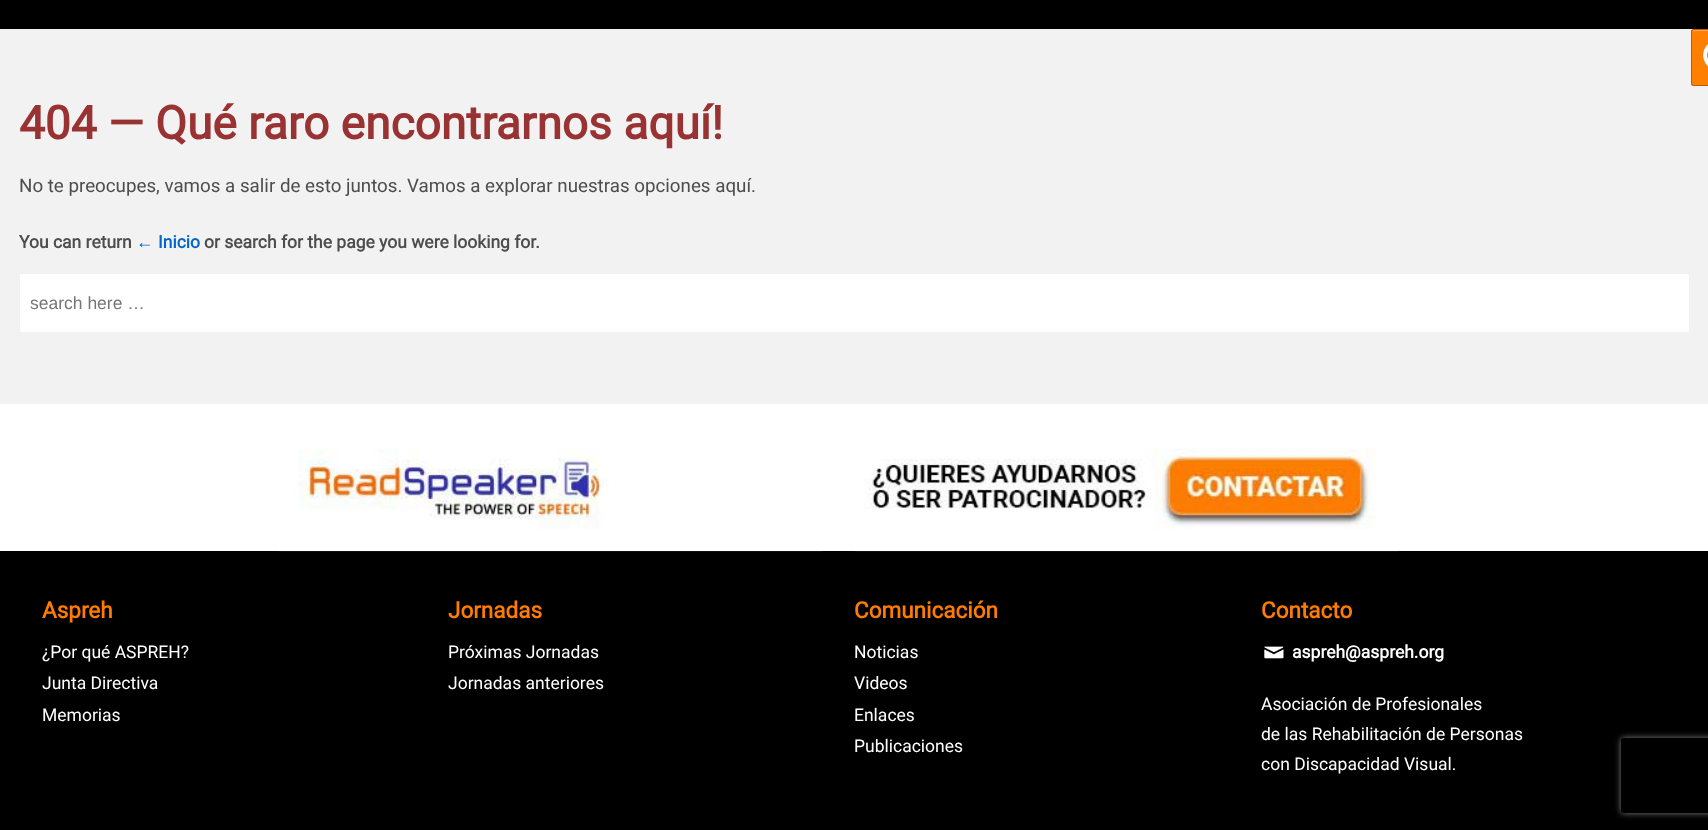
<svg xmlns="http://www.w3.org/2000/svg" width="1708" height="830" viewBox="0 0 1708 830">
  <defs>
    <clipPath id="clip1"><path d="M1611 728H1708V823H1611ZM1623.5 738H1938.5C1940 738 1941 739 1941 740.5V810.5C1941 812 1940 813 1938.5 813H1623.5C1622 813 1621 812 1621 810.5V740.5C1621 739 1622 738 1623.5 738Z" clip-rule="evenodd"/></clipPath>
  </defs>
  <rect width="100%" height="100%" fill="rgb(255,255,255)"/>
  <rect x="0" y="0" width="1708" height="29" fill="rgb(0,0,0)"/>
  <rect x="0" y="29" width="1708" height="375" fill="rgb(242,242,242)"/>
  <text x="19" y="139" font-family="Roboto" font-size="46" font-weight="bold" fill="rgb(153,51,51)">404 — Qué raro encontrarnos aquí!</text>
  <text x="19" y="192" font-family="Roboto" font-size="18.75" fill="rgb(77,77,77)">No te preocupes, vamos a salir de esto juntos. Vamos a explorar nuestras opciones aquí.</text>
  <text x="19" y="248" font-family="Roboto" font-size="17.5" font-weight="bold" fill="rgb(77,77,77)">You can return</text>
  <text x="136" y="248" font-family="Liberation Sans" font-size="17.5" font-weight="bold" fill="rgb(0,102,204)">←</text>
  <text x="158" y="248" font-family="Roboto" font-size="17.5" font-weight="bold" fill="rgb(0,102,204)">Inicio</text>
  <text x="204" y="248" font-family="Roboto" font-size="17.5" font-weight="bold" fill="rgb(77,77,77)">or search for the page you were looking for.</text>
  <rect x="1691" y="29" width="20" height="57" rx="2.5" fill="rgb(255,127,0)"/>
  <image x="1703" y="44" width="5" height="23" href="pic1.png"/>
  <path d="M1694 31H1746L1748 32C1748 27 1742 30 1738 30H1703C1701 30 1693 28 1693 31Z" fill="rgb(255,165,77)"/>
  <rect x="1691.5" y="29.5" width="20" height="56" rx="2" fill="none" stroke="rgb(187,93,0)"/>
  <rect x="19.5" y="273.5" width="1670" height="59" rx="2" fill="rgb(255,255,255)" stroke="rgb(241,241,241)"/>
  <text x="30" y="309" font-family="Liberation Sans" font-size="17.5" fill="rgb(117,117,117)">search here …</text>
  <rect x="0" y="551" width="1708" height="279" fill="rgb(0,0,0)"/>
  <image x="279" y="448" width="544" height="104" href="pic2.png"/>
  <image x="855" y="448" width="544" height="104" href="pic3.png"/>
  <text x="42" y="618" font-family="Roboto" font-size="22.5" font-weight="bold" fill="rgb(255,124,0)">Aspreh</text>
  <g font-family="Roboto" font-size="17.5" fill="rgb(255,255,255)">
    <text>
      <tspan x="42" y="658">¿Por qué ASPREH?</tspan>
      <tspan x="42" y="689">Junta Directiva</tspan>
      <tspan x="42" y="721">Memorias</tspan>
    </text>
  </g>
  <text x="448" y="618" font-family="Roboto" font-size="22.5" font-weight="bold" fill="rgb(255,124,0)">Jornadas</text>
  <g font-family="Roboto" font-size="17.5" fill="rgb(255,255,255)">
    <text>
      <tspan x="448" y="658">Próximas Jornadas</tspan>
      <tspan x="448" y="689">Jornadas anteriores</tspan>
    </text>
  </g>
  <text x="854" y="618" font-family="Roboto" font-size="22.5" font-weight="bold" fill="rgb(255,124,0)">Comunicación</text>
  <g font-family="Roboto" font-size="17.5" fill="rgb(255,255,255)">
    <text>
      <tspan x="854" y="658">Noticias</tspan>
      <tspan x="854" y="689">Videos</tspan>
      <tspan x="854" y="721">Enlaces</tspan>
      <tspan x="854" y="752">Publicaciones</tspan>
    </text>
  </g>
  <text x="1261" y="618" font-family="Roboto" font-size="22.5" font-weight="bold" fill="rgb(255,124,0)">Contacto</text>
  <image x="1264" y="646" width="20" height="13" href="pic4.png"/>
  <text x="1292" y="658" font-family="Roboto" font-size="17.5" font-weight="bold" fill="rgb(255,255,255)">aspreh@aspreh.org</text>
  <g font-family="Roboto" font-size="17.5" fill="rgb(255,255,255)">
    <text>
      <tspan x="1261" y="710">Asociación de Profesionales</tspan>
      <tspan x="1261" y="740">de las Rehabilitación de Personas</tspan>
      <tspan x="1261" y="770">con Discapacidad Visual.</tspan>
    </text>
  </g>
  <g clip-path="url(#clip1)">
    <rect x="1621" y="738" width="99" height="75" rx="2.5" fill="rgb(128,128,128)" filter="blur(3px)"/>
  </g>
</svg>
